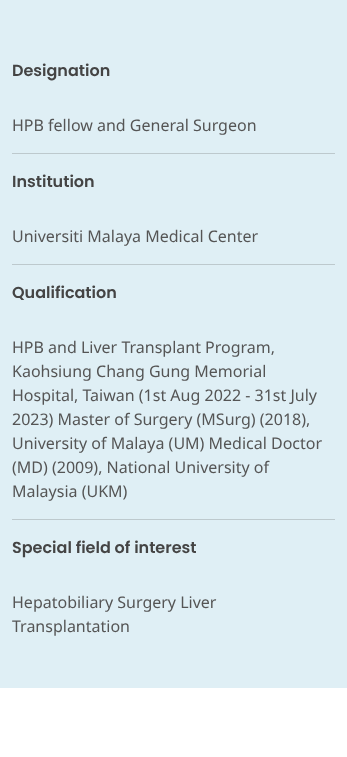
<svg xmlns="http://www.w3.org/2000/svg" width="347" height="757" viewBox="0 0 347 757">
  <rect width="100%" height="100%" fill="rgb(255,255,255)"/>
  <rect x="0" y="0" width="347" height="688" fill="rgb(223,239,245)"/>
  <text x="12" y="76" font-family="Poppins" font-size="16" font-weight="600" fill="rgb(68,68,68)">Designation</text>
  <text x="12" y="131" font-family="Noto Sans" font-size="16" fill="rgb(85,85,85)">HPB fellow and General Surgeon</text>
  <rect x="12" y="153" width="323" height="1" fill="rgb(189,201,205)"/>
  <text x="12" y="187" font-family="Poppins" font-size="16" font-weight="600" fill="rgb(68,68,68)">Institution</text>
  <text x="12" y="242" font-family="Noto Sans" font-size="16" fill="rgb(85,85,85)">Universiti Malaya Medical Center</text>
  <rect x="12" y="264" width="323" height="1" fill="rgb(189,201,205)"/>
  <text x="12" y="298" font-family="Poppins" font-size="16" font-weight="600" fill="rgb(68,68,68)">Qualification</text>
  <g font-family="Noto Sans" font-size="16" fill="rgb(85,85,85)">
    <text>
      <tspan x="12" y="353">HPB and Liver Transplant Program,</tspan>
      <tspan x="12" y="377">Kaohsiung Chang Gung Memorial</tspan>
      <tspan x="12" y="401">Hospital, Taiwan (1st Aug 2022 - 31st July</tspan>
      <tspan x="12" y="425">2023) Master of Surgery (MSurg) (2018),</tspan>
      <tspan x="12" y="449">University of Malaya (UM) Medical Doctor</tspan>
      <tspan x="12" y="473">(MD) (2009), National University of</tspan>
      <tspan x="12" y="497">Malaysia (UKM)</tspan>
    </text>
  </g>
  <rect x="12" y="519" width="323" height="1" fill="rgb(189,201,205)"/>
  <text x="12" y="553" font-family="Poppins" font-size="16" font-weight="600" fill="rgb(68,68,68)">Special field of interest</text>
  <g font-family="Noto Sans" font-size="16" fill="rgb(85,85,85)">
    <text>
      <tspan x="12" y="608">Hepatobiliary Surgery Liver</tspan>
      <tspan x="12" y="632">Transplantation</tspan>
    </text>
  </g>
</svg>
